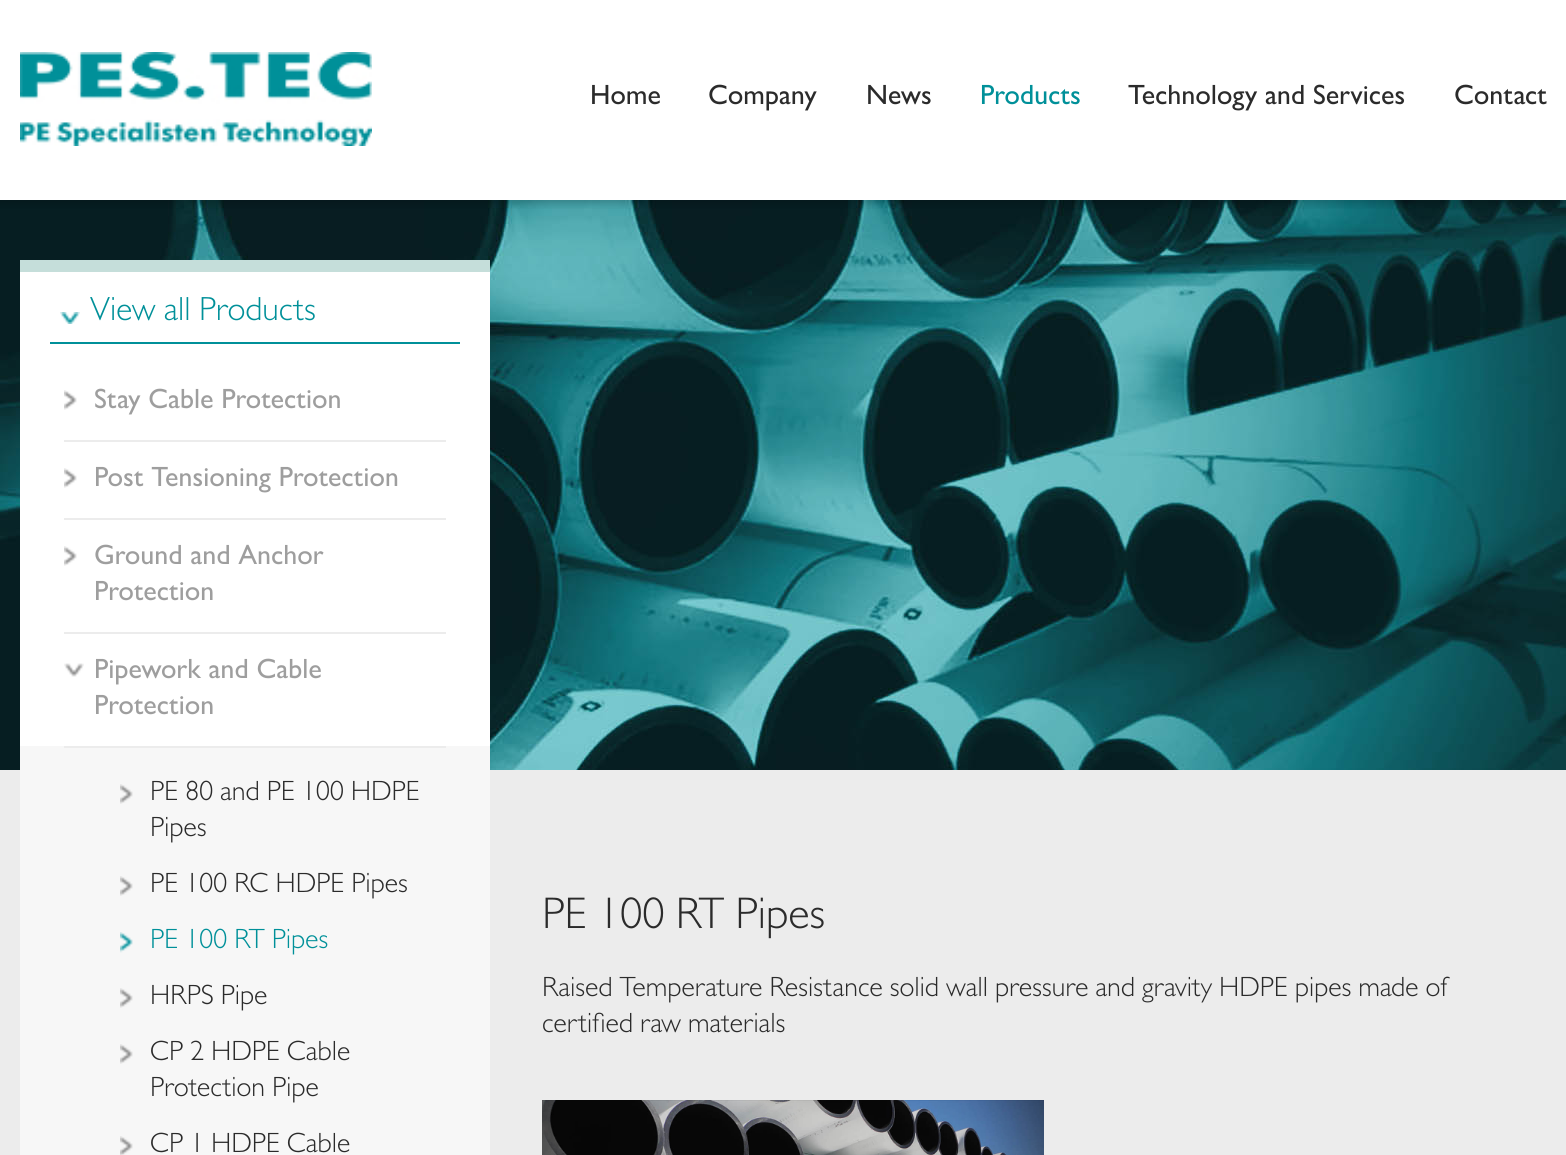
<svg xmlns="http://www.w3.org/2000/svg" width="1566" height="1155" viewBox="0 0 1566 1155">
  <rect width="100%" height="100%" fill="rgb(236,236,236)"/>
  <rect x="0" y="0" width="1566" height="200" fill="rgb(255,255,255)"/>
  <image x="20" y="52" width="352" height="94" href="pic1.png"/>
  <image x="592" y="84" width="68" height="21" href="pic2.png"/>
  <image x="709" y="84" width="108" height="27" href="pic3.png"/>
  <image x="868" y="84" width="63" height="21" href="pic4.png"/>
  <image x="981" y="84" width="99" height="21" href="pic5.png"/>
  <image x="1128" y="84" width="277" height="27" href="pic6.png"/>
  <image x="1455" y="84" width="92" height="21" href="pic7.png"/>
  <image x="0" y="200" width="1566" height="570" href="pic9.png"/>
  <image x="0" y="200" width="1566" height="9" href="pic8.png"/>
  <rect x="20" y="272" width="470" height="474" fill="rgb(255,255,255)"/>
  <rect x="20" y="260" width="470" height="12" fill="rgb(197,222,218)"/>
  <rect x="50" y="342" width="410" height="2" fill="rgb(0,144,153)"/>
  <image x="60" y="312" width="20" height="12" href="pic10.png"/>
  <image x="90" y="297" width="225" height="24" href="pic11.png"/>
  <rect x="64" y="440" width="382" height="2" fill="rgb(236,236,236)"/>
  <image x="64" y="390" width="13" height="20" href="pic12.png"/>
  <image x="95" y="388" width="245" height="27" href="pic13.png"/>
  <rect x="64" y="518" width="382" height="2" fill="rgb(236,236,236)"/>
  <image x="64" y="468" width="13" height="20" href="pic12.png"/>
  <image x="96" y="466" width="302" height="27" href="pic14.png"/>
  <rect x="64" y="632" width="382" height="2" fill="rgb(236,236,236)"/>
  <image x="64" y="546" width="13" height="20" href="pic12.png"/>
  <image x="95" y="544" width="229" height="21" href="pic15.png"/>
  <image x="96" y="580" width="117" height="21" href="pic16.png"/>
  <rect x="20" y="746" width="470" height="409" fill="rgb(247,247,247)"/>
  <rect x="64" y="746" width="382" height="2" fill="rgb(236,236,236)"/>
  <image x="64" y="663" width="20" height="14" href="pic17.png"/>
  <image x="96" y="658" width="225" height="27" href="pic18.png"/>
  <image x="96" y="694" width="117" height="21" href="pic16.png"/>
  <image x="120" y="784" width="13" height="20" href="pic19.png"/>
  <image x="152" y="780" width="267" height="21" href="pic20.png"/>
  <image x="152" y="816" width="54" height="27" href="pic21.png"/>
  <image x="120" y="876" width="13" height="20" href="pic19.png"/>
  <image x="152" y="872" width="255" height="27" href="pic22.png"/>
  <image x="120" y="932" width="13" height="21" href="pic23.png"/>
  <image x="152" y="928" width="176" height="27" href="pic24.png"/>
  <image x="120" y="988" width="13" height="20" href="pic19.png"/>
  <image x="152" y="984" width="115" height="27" href="pic25.png"/>
  <image x="120" y="1044" width="13" height="20" href="pic19.png"/>
  <image x="151" y="1040" width="199" height="21" href="pic26.png"/>
  <image x="152" y="1076" width="166" height="27" href="pic27.png"/>
  <image x="120" y="1136" width="13" height="19" href="pic28.png"/>
  <image x="151" y="1132" width="199" height="21" href="pic29.png"/>
  <image x="545" y="897" width="279" height="42" href="pic30.png"/>
  <image x="544" y="976" width="906" height="27" href="pic31.png"/>
  <image x="543" y="1012" width="242" height="21" href="pic32.png"/>
  <image x="542" y="1100" width="502" height="55" href="pic33.png"/>
</svg>
